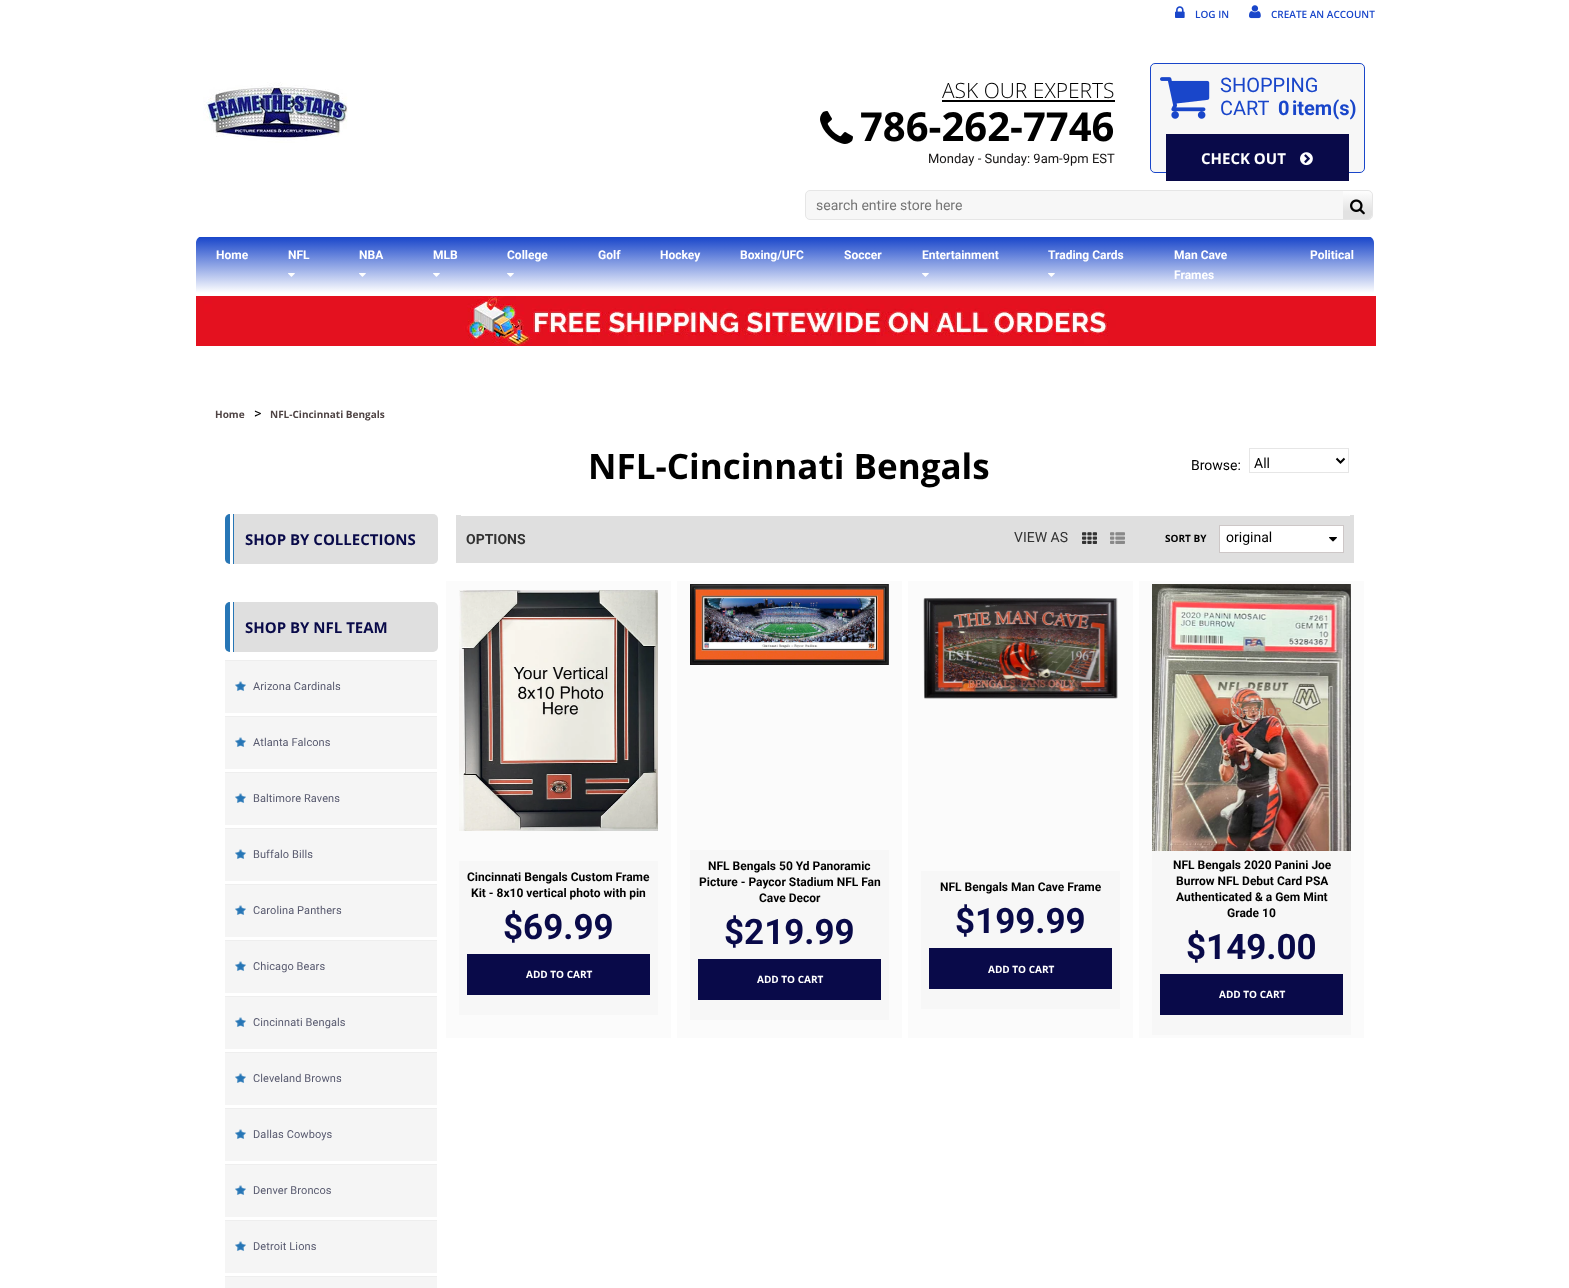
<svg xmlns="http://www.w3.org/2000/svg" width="1569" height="1288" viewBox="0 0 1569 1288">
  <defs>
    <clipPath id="clip1"><rect x="806" y="191" width="566" height="28" rx="4"/></clipPath>
    <linearGradient id="g1" gradientUnits="userSpaceOnUse" x1="1358" y1="191" x2="1358" y2="224"><stop offset="0" stop-color="rgb(254,254,254)"/><stop offset="0.21" stop-color="rgb(245,245,245)"/><stop offset="0.62" stop-color="rgb(226,226,226)"/><stop offset="1" stop-color="rgb(226,226,226)"/></linearGradient>
    <clipPath id="clip2"><path d="M203 236H1367C1371 236 1374 239 1374 243V296H196V243C196 239 199 236 203 236Z"/></clipPath>
    <linearGradient id="g2" gradientUnits="userSpaceOnUse" x1="785" y1="237" x2="785" y2="293"><stop offset="0" stop-color="rgb(25,70,202)"/><stop offset="1" stop-color="rgb(255,255,255)"/></linearGradient>
  </defs>
  <rect width="100%" height="100%" fill="rgb(255,255,255)"/>
  <image x="1175" y="6" width="10" height="12" href="pic1.png"/>
  <text x="1195" y="18" font-family="Open Sans" font-size="10" font-weight="600" fill="rgb(25,70,202)">LOG IN</text>
  <image x="1249" y="5" width="12" height="14" href="pic2.png"/>
  <text x="1271" y="18" font-family="Open Sans" font-size="10" font-weight="600" fill="rgb(25,70,202)">CREATE AN ACCOUNT</text>
  <text x="942" y="98" font-family="Open Sans" font-size="21" font-weight="300" fill="rgb(0,0,0)">ASK OUR EXPERTS</text>
  <rect x="942" y="100" width="173" height="2" fill="rgb(0,0,0)"/>
  <image x="820" y="111" width="33" height="33" href="pic3.png"/>
  <text x="860" y="141" font-family="Open Sans" font-size="40" font-weight="bold" fill="rgb(0,0,0)">786-262-7746</text>
  <text x="928" y="163" font-family="Roboto" font-size="13" fill="rgb(21,19,19)">Monday - Sunday: 9am-9pm EST</text>
  <rect x="1150.5" y="63.5" width="214" height="109" rx="4.5" fill="rgb(247,247,247)" stroke="rgb(25,70,202)"/>
  <image x="1160" y="77" width="50" height="42" href="pic4.png"/>
  <g font-family="Roboto" font-size="20" fill="rgb(25,70,202)">
    <text>
      <tspan x="1220" y="92">SHOPPING</tspan>
      <tspan x="1220" y="115">CART</tspan>
    </text>
  </g>
  <g font-family="Roboto" font-size="20" font-weight="bold" fill="rgb(25,70,202)">
    <text x="1278" y="115">0</text>
    <text x="1292" y="115">item(s)</text>
  </g>
  <rect x="1166" y="134" width="183" height="47" fill="rgb(9,10,73)"/>
  <text x="1201" y="164" font-family="Open Sans" font-size="15" font-weight="bold" fill="rgb(255,255,255)">CHECK OUT</text>
  <image x="1300" y="152" width="13" height="14" href="pic5.png"/>
  <image x="203" y="82" width="145" height="61" href="pic6.png"/>
  <rect x="805.5" y="190.5" width="567" height="29" rx="4.5" fill="rgb(247,247,247)" stroke="rgb(230,230,230)"/>
  <text x="816" y="210" font-family="Roboto" font-size="14" fill="rgb(117,117,117)">search entire store here</text>
  <g clip-path="url(#clip1)">
    <path d="M1343 191H1367C1370 191 1372 193 1372 196V215C1372 217 1370 219 1368 219H1343Z" fill="url(#g1)"/>
  </g>
  <image x="1350" y="199" width="15" height="16" href="pic7.png"/>
  <g clip-path="url(#clip2)">
    <rect x="196" y="237" width="1178" height="56" fill="url(#g2)"/>
  </g>
  <g font-family="Roboto" font-size="12" font-weight="bold" fill="rgb(255,255,255)">
    <text x="216" y="259">Home</text>
    <text x="288" y="259">NFL</text>
  </g>
  <image x="288" y="273" width="7" height="4" href="pic8.png"/>
  <text x="359" y="259" font-family="Roboto" font-size="12" font-weight="bold" fill="rgb(255,255,255)">NBA</text>
  <image x="359" y="273" width="7" height="4" href="pic8.png"/>
  <text x="433" y="259" font-family="Roboto" font-size="12" font-weight="bold" fill="rgb(255,255,255)">MLB</text>
  <image x="433" y="273" width="7" height="4" href="pic8.png"/>
  <text x="507" y="259" font-family="Roboto" font-size="12" font-weight="bold" fill="rgb(255,255,255)">College</text>
  <image x="507" y="273" width="7" height="4" href="pic8.png"/>
  <g font-family="Roboto" font-size="12" font-weight="bold" fill="rgb(255,255,255)">
    <text x="598" y="259">Golf</text>
    <text x="660" y="259">Hockey</text>
    <text x="740" y="259">Boxing/UFC</text>
    <text x="844" y="259">Soccer</text>
    <text x="922" y="259">Entertainment</text>
  </g>
  <image x="922" y="273" width="7" height="4" href="pic8.png"/>
  <text x="1048" y="259" font-family="Roboto" font-size="12" font-weight="bold" fill="rgb(255,255,255)">Trading Cards</text>
  <image x="1048" y="273" width="7" height="4" href="pic8.png"/>
  <g font-family="Roboto" font-size="12" font-weight="bold" fill="rgb(255,255,255)">
    <text>
      <tspan x="1174" y="259">Man Cave</tspan>
      <tspan x="1174" y="279">Frames</tspan>
    </text>
    <text x="1310" y="259">Political</text>
  </g>
  <image x="196" y="296" width="1180" height="50" href="pic9.png"/>
  <text x="215" y="418" font-family="Open Sans" font-size="10" font-weight="bold" fill="rgb(79,68,68)">Home</text>
  <text x="254" y="418" font-family="Roboto" font-size="14" fill="rgb(0,0,0)">&gt;</text>
  <text x="270" y="418" font-family="Open Sans" font-size="10" font-weight="bold" fill="rgb(79,68,68)">NFL-Cincinnati Bengals</text>
  <rect x="225" y="514" width="213" height="50" rx="5" fill="rgb(223,223,223)"/>
  <image x="225" y="514" width="9" height="50" href="pic10.png"/>
  <text x="245" y="545" font-family="Open Sans" font-size="15" font-weight="bold" fill="rgb(9,10,73)">SHOP BY COLLECTIONS</text>
  <rect x="225" y="602" width="213" height="50" rx="5" fill="rgb(223,223,223)"/>
  <image x="225" y="602" width="9" height="50" href="pic10.png"/>
  <text x="245" y="633" font-family="Open Sans" font-size="15" font-weight="bold" fill="rgb(9,10,73)">SHOP BY NFL TEAM</text>
  <rect x="225" y="661" width="212" height="52" fill="rgb(245,245,245)"/>
  <rect x="225" y="660" width="212" height="1" fill="rgb(238,238,238)"/>
  <image x="235" y="681" width="11" height="10" href="pic11.png"/>
  <text x="253" y="690" font-family="Roboto" font-size="11" letter-spacing="0.1" fill="rgb(88,90,111)">Arizona Cardinals</text>
  <rect x="225" y="717" width="212" height="52" fill="rgb(245,245,245)"/>
  <rect x="225" y="716" width="212" height="1" fill="rgb(238,238,238)"/>
  <image x="235" y="737" width="11" height="10" href="pic11.png"/>
  <text x="253" y="746" font-family="Roboto" font-size="11" letter-spacing="0.1" fill="rgb(88,90,111)">Atlanta Falcons</text>
  <rect x="225" y="773" width="212" height="52" fill="rgb(245,245,245)"/>
  <rect x="225" y="772" width="212" height="1" fill="rgb(238,238,238)"/>
  <image x="235" y="793" width="11" height="10" href="pic11.png"/>
  <text x="253" y="802" font-family="Roboto" font-size="11" letter-spacing="0.1" fill="rgb(88,90,111)">Baltimore Ravens</text>
  <rect x="225" y="829" width="212" height="52" fill="rgb(245,245,245)"/>
  <rect x="225" y="828" width="212" height="1" fill="rgb(238,238,238)"/>
  <image x="235" y="849" width="11" height="10" href="pic11.png"/>
  <text x="253" y="858" font-family="Roboto" font-size="11" letter-spacing="0.1" fill="rgb(88,90,111)">Buffalo Bills</text>
  <rect x="225" y="885" width="212" height="52" fill="rgb(245,245,245)"/>
  <rect x="225" y="884" width="212" height="1" fill="rgb(238,238,238)"/>
  <image x="235" y="905" width="11" height="10" href="pic11.png"/>
  <text x="253" y="914" font-family="Roboto" font-size="11" letter-spacing="0.1" fill="rgb(88,90,111)">Carolina Panthers</text>
  <rect x="225" y="941" width="212" height="52" fill="rgb(245,245,245)"/>
  <rect x="225" y="940" width="212" height="1" fill="rgb(238,238,238)"/>
  <image x="235" y="961" width="11" height="10" href="pic11.png"/>
  <text x="253" y="970" font-family="Roboto" font-size="11" letter-spacing="0.1" fill="rgb(88,90,111)">Chicago Bears</text>
  <rect x="225" y="997" width="212" height="52" fill="rgb(245,245,245)"/>
  <rect x="225" y="996" width="212" height="1" fill="rgb(238,238,238)"/>
  <image x="235" y="1017" width="11" height="10" href="pic11.png"/>
  <text x="253" y="1026" font-family="Roboto" font-size="11" letter-spacing="0.1" fill="rgb(88,90,111)">Cincinnati Bengals</text>
  <rect x="225" y="1053" width="212" height="52" fill="rgb(245,245,245)"/>
  <rect x="225" y="1052" width="212" height="1" fill="rgb(238,238,238)"/>
  <image x="235" y="1073" width="11" height="10" href="pic11.png"/>
  <text x="253" y="1082" font-family="Roboto" font-size="11" letter-spacing="0.1" fill="rgb(88,90,111)">Cleveland Browns</text>
  <rect x="225" y="1109" width="212" height="52" fill="rgb(245,245,245)"/>
  <rect x="225" y="1108" width="212" height="1" fill="rgb(238,238,238)"/>
  <image x="235" y="1129" width="11" height="10" href="pic11.png"/>
  <text x="253" y="1138" font-family="Roboto" font-size="11" letter-spacing="0.1" fill="rgb(88,90,111)">Dallas Cowboys</text>
  <rect x="225" y="1165" width="212" height="52" fill="rgb(245,245,245)"/>
  <rect x="225" y="1164" width="212" height="1" fill="rgb(238,238,238)"/>
  <image x="235" y="1185" width="11" height="10" href="pic11.png"/>
  <text x="253" y="1194" font-family="Roboto" font-size="11" letter-spacing="0.1" fill="rgb(88,90,111)">Denver Broncos</text>
  <rect x="225" y="1221" width="212" height="52" fill="rgb(245,245,245)"/>
  <rect x="225" y="1220" width="212" height="1" fill="rgb(238,238,238)"/>
  <image x="235" y="1241" width="11" height="10" href="pic11.png"/>
  <text x="253" y="1250" font-family="Roboto" font-size="11" letter-spacing="0.1" fill="rgb(88,90,111)">Detroit Lions</text>
  <rect x="225" y="1277" width="212" height="11" fill="rgb(245,245,245)"/>
  <rect x="225" y="1276" width="212" height="1" fill="rgb(238,238,238)"/>
  <text x="588" y="479" font-family="Open Sans" font-size="35" font-weight="bold" fill="rgb(0,0,0)">NFL-Cincinnati Bengals</text>
  <text x="1191" y="470" font-family="Roboto" font-size="14" fill="rgb(0,0,0)">Browse:</text>
  <rect x="1249.5" y="448.5" width="99" height="24" fill="none" stroke="rgb(230,230,230)"/>
  <path d="M1336.5 458.5L1340.5 462.5L1344.5 458.5" fill="none" stroke="rgb(0,0,0)" stroke-width="2"/>
  <text x="1254" y="468" font-family="Roboto" font-size="14" fill="rgb(0,0,0)">All</text>
  <rect x="456" y="515" width="898" height="48" fill="rgb(223,223,223)"/>
  <rect x="461" y="515" width="889" height="1" fill="rgb(255,255,255)"/>
  <text x="466" y="544" font-family="Roboto" font-size="14" font-weight="bold" fill="rgb(51,51,51)">OPTIONS</text>
  <text x="1014" y="542" font-family="Roboto" font-size="14" fill="rgb(51,51,51)">VIEW AS</text>
  <image x="1082" y="532" width="15" height="12" href="pic12.png"/>
  <image x="1110" y="532" width="15" height="12" href="pic13.png"/>
  <text x="1165" y="542" font-family="Open Sans" font-size="10" font-weight="bold" fill="rgb(0,0,0)">SORT BY</text>
  <rect x="1219.5" y="525.5" width="124" height="27" fill="rgb(255,255,255)" stroke="rgb(205,199,199)"/>
  <text x="1226" y="542" font-family="Roboto" font-size="14" fill="rgb(0,0,0)">original</text>
  <image x="1329" y="537" width="8" height="5" href="pic14.png"/>
  <rect x="446" y="581" width="225" height="457" fill="rgb(251,251,251)"/>
  <image x="459" y="590" width="199" height="241" href="pic15.png"/>
  <rect x="459" y="861" width="199" height="154" fill="rgb(247,247,247)"/>
  <g font-family="Roboto" font-size="12" font-weight="bold" fill="rgb(0,0,0)">
    <text x="467" y="881">Cincinnati Bengals Custom Frame</text>
    <text x="471" y="897">Kit - 8x10 vertical photo with pin</text>
  </g>
  <text x="503" y="939" font-family="Roboto" font-size="35" font-weight="bold" fill="rgb(9,10,73)">$69.99</text>
  <rect x="467" y="954" width="183" height="41" fill="rgb(9,10,73)"/>
  <text x="526" y="978" font-family="Open Sans" font-size="10" font-weight="bold" fill="rgb(255,255,255)">ADD TO CART</text>
  <rect x="677" y="581" width="225" height="457" fill="rgb(251,251,251)"/>
  <image x="690" y="584" width="199" height="81" href="pic16.png"/>
  <rect x="690" y="850" width="199" height="170" fill="rgb(247,247,247)"/>
  <g font-family="Roboto" font-size="12" font-weight="bold" fill="rgb(0,0,0)">
    <text x="708" y="870">NFL Bengals 50 Yd Panoramic</text>
    <text x="699" y="886">Picture - Paycor Stadium NFL Fan</text>
    <text x="759" y="902">Cave Decor</text>
  </g>
  <text x="724" y="944" font-family="Roboto" font-size="35" font-weight="bold" fill="rgb(9,10,73)">$219.99</text>
  <rect x="698" y="959" width="183" height="41" fill="rgb(9,10,73)"/>
  <text x="757" y="983" font-family="Open Sans" font-size="10" font-weight="bold" fill="rgb(255,255,255)">ADD TO CART</text>
  <rect x="908" y="581" width="225" height="457" fill="rgb(251,251,251)"/>
  <image x="923" y="598" width="195" height="101" href="pic17.png"/>
  <rect x="921" y="871" width="199" height="138" fill="rgb(247,247,247)"/>
  <text x="940" y="891" font-family="Roboto" font-size="12" font-weight="bold" fill="rgb(0,0,0)">NFL Bengals Man Cave Frame</text>
  <text x="955" y="933" font-family="Roboto" font-size="35" font-weight="bold" fill="rgb(9,10,73)">$199.99</text>
  <rect x="929" y="948" width="183" height="41" fill="rgb(9,10,73)"/>
  <text x="988" y="973" font-family="Open Sans" font-size="10" font-weight="bold" fill="rgb(255,255,255)">ADD TO CART</text>
  <rect x="1139" y="581" width="225" height="457" fill="rgb(251,251,251)"/>
  <rect x="1152" y="849" width="199" height="186" fill="rgb(247,247,247)"/>
  <image x="1152" y="584" width="199" height="267" href="pic18.png"/>
  <text x="1222" y="715" font-family="Open Sans" font-size="10" font-weight="bold" fill="rgb(188,124,101)">QUICKSHOP</text>
  <g font-family="Roboto" font-size="12" font-weight="bold" fill="rgb(0,0,0)">
    <text x="1173" y="869">NFL Bengals 2020 Panini Joe</text>
    <text>
      <tspan x="1176" y="885">Burrow NFL Debut Card PSA</tspan>
      <tspan x="1176" y="901">Authenticated &amp; a Gem Mint</tspan>
    </text>
    <text x="1227" y="917">Grade 10</text>
  </g>
  <text x="1186" y="959" font-family="Roboto" font-size="35" font-weight="bold" fill="rgb(9,10,73)">$149.00</text>
  <rect x="1160" y="974" width="183" height="41" fill="rgb(9,10,73)"/>
  <text x="1219" y="998" font-family="Open Sans" font-size="10" font-weight="bold" fill="rgb(255,255,255)">ADD TO CART</text>
</svg>
